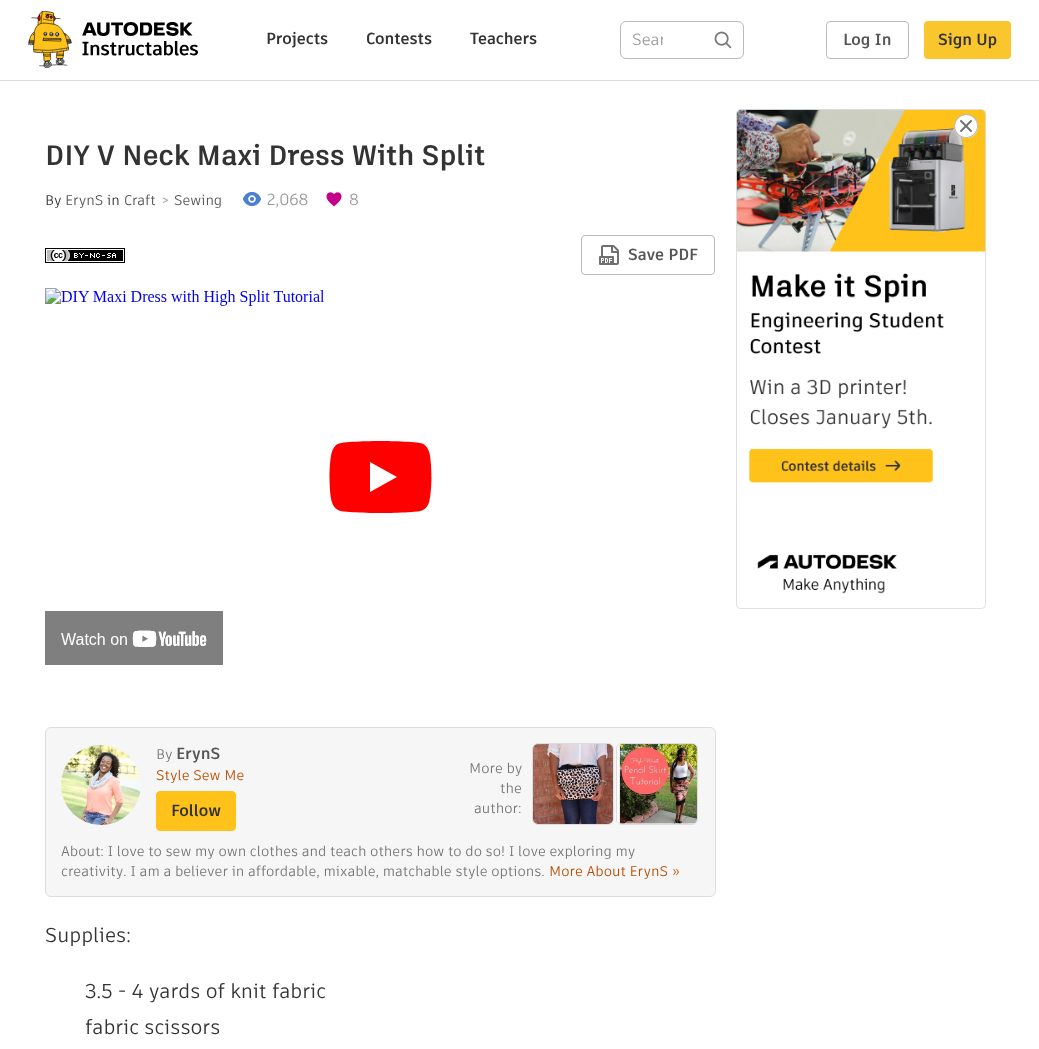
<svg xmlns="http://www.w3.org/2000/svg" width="1039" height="1049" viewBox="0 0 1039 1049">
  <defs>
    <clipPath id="clip1"><rect x="632" y="28" width="31" height="23"/></clipPath>
  </defs>
  <rect width="100%" height="100%" fill="rgb(255,255,255)"/>
  <rect x="0" y="80" width="1039" height="1" fill="rgb(221,221,221)"/>
  <image x="28" y="11" width="170" height="57" href="pic1.png"/>
  <g font-family="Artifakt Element" font-size="16" font-weight="bold" fill="rgb(51,51,51)">
    <text x="266" y="44">Projects</text>
    <text x="366" y="44">Contests</text>
    <text x="470" y="44">Teachers</text>
  </g>
  <rect x="620.5" y="21.5" width="123" height="37" rx="5.5" fill="none" stroke="rgb(187,187,187)"/>
  <g clip-path="url(#clip1)">
    <text x="632" y="45" font-family="Artifakt Element" font-size="16" fill="rgb(153,153,153)">Sear</text>
  </g>
  <image x="714" y="31" width="18" height="18" href="pic2.png"/>
  <rect x="826.5" y="21.5" width="82" height="37" rx="3.5" fill="none" stroke="rgb(187,187,187)"/>
  <text x="843" y="45" font-family="Artifakt Element" font-size="16" font-weight="bold" fill="rgb(85,85,85)">Log In</text>
  <rect x="925" y="22" width="85" height="36" rx="3" fill="rgb(250,198,45)" stroke="rgb(250,198,45)" stroke-width="2"/>
  <text x="938" y="45" font-family="Artifakt Element" font-size="16" font-weight="bold" fill="rgb(51,51,51)">Sign Up</text>
  <text x="45" y="165" font-family="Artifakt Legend" font-size="28" font-weight="bold" fill="rgb(51,51,51)">DIY V Neck Maxi Dress With Split</text>
  <text x="45" y="205" font-family="Artifakt Element" font-size="14" fill="rgb(51,51,51)">By</text>
  <text x="65" y="205" font-family="Artifakt Element" font-size="14" fill="rgb(85,85,85)">ErynS</text>
  <text x="107" y="205" font-family="Artifakt Element" font-size="14" fill="rgb(51,51,51)">in</text>
  <text x="124" y="205" font-family="Artifakt Element" font-size="14" fill="rgb(85,85,85)">Craft</text>
  <text x="161" y="205" font-family="Artifakt Element" font-size="14" fill="rgb(153,153,153)">&gt;</text>
  <text x="174" y="205" font-family="Artifakt Element" font-size="14" fill="rgb(85,85,85)">Sewing</text>
  <image x="242" y="191" width="20" height="16" href="pic3.png"/>
  <text x="267" y="205" font-family="Artifakt Element" font-size="16" fill="rgb(153,153,153)">2,068</text>
  <image x="326" y="192" width="16" height="15" href="pic4.png"/>
  <text x="349" y="205" font-family="Artifakt Element" font-size="16" fill="rgb(153,153,153)">8</text>
  <image x="45" y="248" width="80" height="15" href="pic5.png"/>
  <rect x="581.5" y="235.5" width="133" height="39" rx="3.5" fill="none" stroke="rgb(187,187,187)"/>
  <image x="599" y="245" width="20" height="20" href="pic6.png"/>
  <text x="628" y="260" font-family="Artifakt Element" font-size="16" font-weight="bold" fill="rgb(85,85,85)">Save PDF</text>
  <image x="45" y="288" width="387" height="377" href="pic7.png"/>
  <rect x="45.5" y="727.5" width="670" height="169" rx="5.5" fill="rgb(246,246,246)" stroke="rgb(221,221,221)"/>
  <image x="61" y="745" width="80" height="80" href="pic8.png"/>
  <text x="156" y="759" font-family="Artifakt Element" font-size="14" fill="rgb(119,119,119)">By</text>
  <text x="176" y="759" font-family="Artifakt Element" font-size="16" font-weight="bold" fill="rgb(85,85,85)">ErynS</text>
  <text x="156" y="780" font-family="Artifakt Element" font-size="14" fill="rgb(185,78,0)">Style Sew Me</text>
  <rect x="156.5" y="791.5" width="79" height="39" rx="3.5" fill="rgb(255,194,26)" stroke="rgb(255,194,26)"/>
  <text x="171" y="816" font-family="Artifakt Element" font-size="16" font-weight="bold" fill="rgb(51,51,51)">Follow</text>
  <g font-family="Artifakt Element" font-size="14" fill="rgb(119,119,119)">
    <text x="469" y="773">More by</text>
    <text x="500" y="793">the</text>
    <text x="474" y="813">author:</text>
  </g>
  <rect x="532.5" y="743.5" width="81" height="81" rx="5.5" fill="none" stroke="rgb(221,221,221)"/>
  <image x="533" y="744" width="80" height="80" href="pic9.png"/>
  <rect x="616.5" y="743.5" width="81" height="81" rx="5.5" fill="none" stroke="rgb(221,221,221)"/>
  <image x="617" y="744" width="80" height="80" href="pic10.png"/>
  <g font-family="Artifakt Element" font-size="14" fill="rgb(119,119,119)">
    <text>
      <tspan x="61" y="856">About: I love to sew my own clothes and teach others how to do so! I love exploring my</tspan>
      <tspan x="61" y="876">creativity. I am a believer in affordable, mixable, matchable style options.</tspan>
    </text>
  </g>
  <text x="549" y="876" font-family="Artifakt Element" font-size="14" fill="rgb(185,78,0)">More About ErynS »</text>
  <g font-family="Artifakt Element" font-size="20" fill="rgb(51,51,51)">
    <text x="45" y="942">Supplies:</text>
    <text>
      <tspan x="85" y="998">3.5 - 4 yards of knit fabric</tspan>
      <tspan x="85" y="1034">fabric scissors</tspan>
    </text>
  </g>
  <image x="736" y="109" width="250" height="500" href="pic11.png"/>
  <image x="954" y="114" width="24" height="24" href="pic12.png"/>
</svg>
